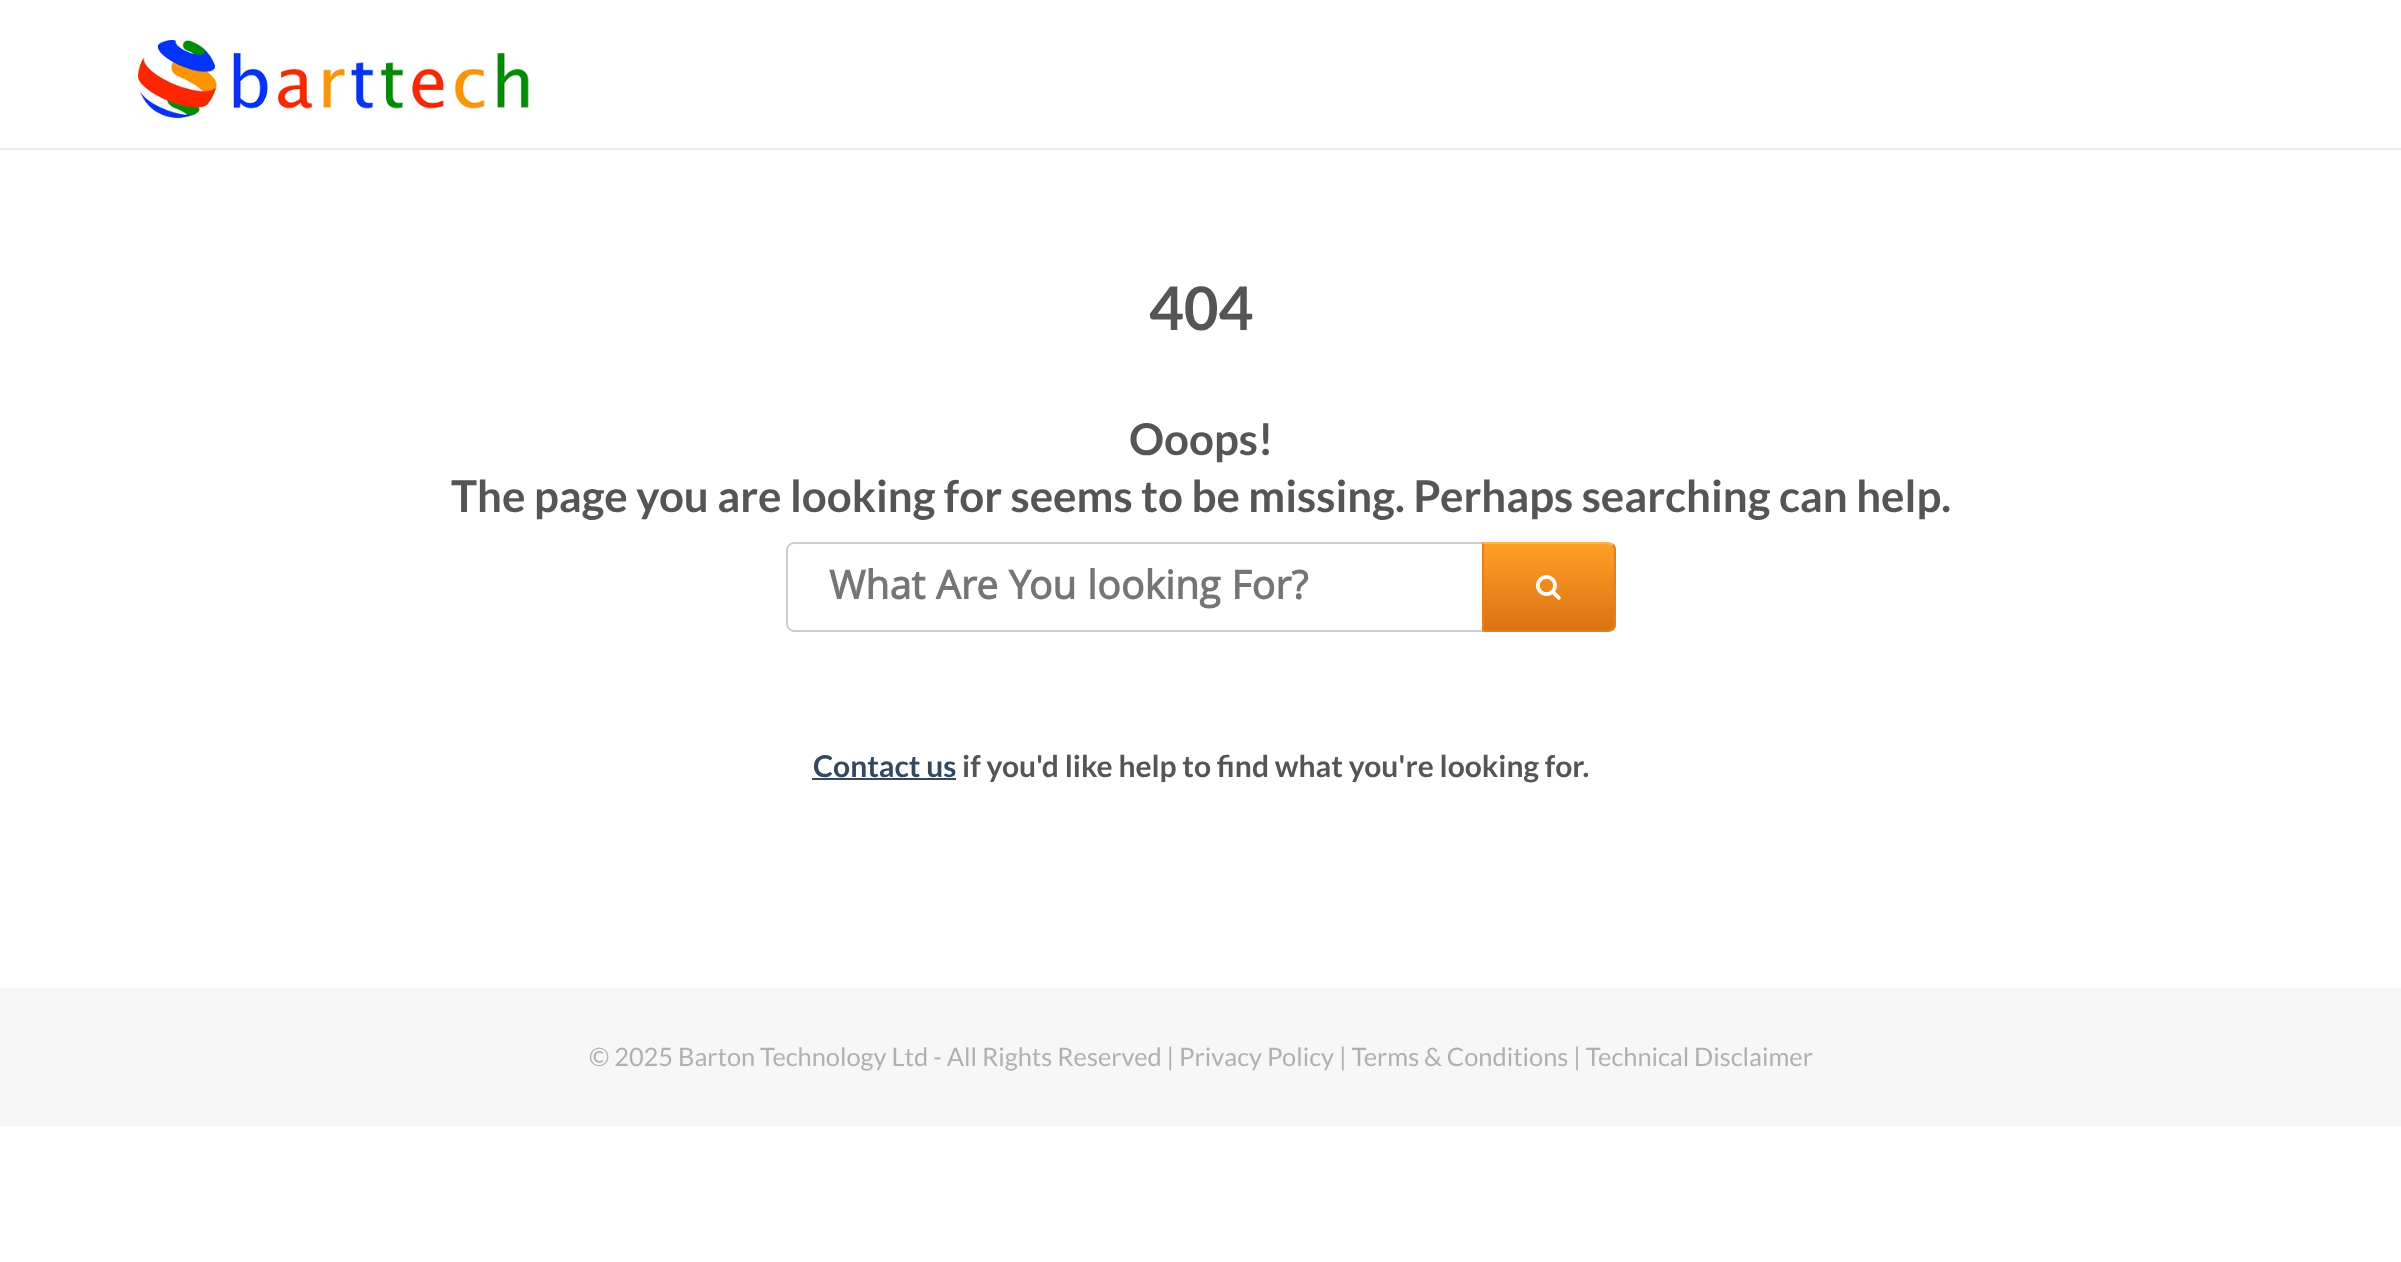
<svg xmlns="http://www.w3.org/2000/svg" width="2401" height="1262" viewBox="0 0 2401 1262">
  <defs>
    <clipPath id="clip1"><path d="M1482 542H1608C1612.5 542 1616 545.5 1616 550V624C1616 628.5 1612.5 632 1608 632H1482Z"/></clipPath>
    <linearGradient id="g1" gradientUnits="userSpaceOnUse" x1="1549" y1="544" x2="1549" y2="630"><stop offset="0" stop-color="rgb(255,160,37)"/><stop offset="1" stop-color="rgb(220,114,20)"/></linearGradient>
  </defs>
  <rect width="100%" height="100%" fill="rgb(255,255,255)"/>
  <rect x="0" y="148" width="2401" height="2" fill="rgb(235,235,235)"/>
  <image x="138" y="40" width="391" height="81" href="pic1.png"/>
  <text x="1149" y="330" font-family="Lato" font-size="60" font-weight="bold" fill="rgb(85,85,85)">404</text>
  <g font-family="Lato" font-size="43.85" font-weight="bold" fill="rgb(85,85,85)">
    <text x="1129" y="455">Ooops!</text>
    <text x="451" y="512">The page you are looking for seems to be missing. Perhaps searching can help.</text>
  </g>
  <path d="M794 542H1482V632H794C790 632 786 628 786 624V550C786 546 790 542 794 542ZM794 544H1482V630H794C791 630 788 627 788 624V550C788 547 791 544 794 544Z" fill="rgb(205,205,205)" fill-rule="evenodd"/>
  <text x="829" y="599" word-spacing="0.5" font-family="Open Sans" font-size="39.25" font-weight="bold" fill="rgb(117,117,117)">What Are You looking For?</text>
  <g clip-path="url(#clip1)">
    <rect x="1484" y="544" width="132" height="86" fill="url(#g1)"/>
  </g>
  <path d="M1482 542L1484 544H1609L1612 546L1614 544C1612 543 1610 542 1608 542Z" fill="rgb(247,181,89)"/>
  <path d="M1616 624V550C1616 548 1615 546 1614 544L1612 546L1614 549V625L1612 628L1614 630C1615 628 1616 626 1616 624Z" fill="rgb(230,126,34)"/>
  <path d="M1608 632C1610 632 1612 631 1614 630L1612 628L1609 630H1484L1482 632Z" fill="rgb(230,126,34)"/>
  <path d="M1482 542V632L1484 630V544Z" fill="rgb(230,126,34)"/>
  <image x="1536" y="575" width="25" height="25" href="pic2.png"/>
  <text x="813" y="777" font-family="Lato" font-size="30" font-weight="bold" fill="rgb(52,73,94)">Contact us</text>
  <rect x="812" y="778" width="144" height="2" fill="rgb(52,73,94)"/>
  <text x="962" y="777" font-family="Lato" font-size="30" font-weight="bold" fill="rgb(85,85,85)">if you'd like help to find what you're looking for.</text>
  <rect x="0" y="988" width="2401" height="138" fill="rgb(247,247,247)"/>
  <text x="589" y="1066" font-family="Lato" font-size="25.4" fill="rgb(176,176,176)">© 2025 Barton Technology Ltd - All Rights Reserved | Privacy Policy | Terms &amp; Conditions | Technical Disclaimer</text>
</svg>
